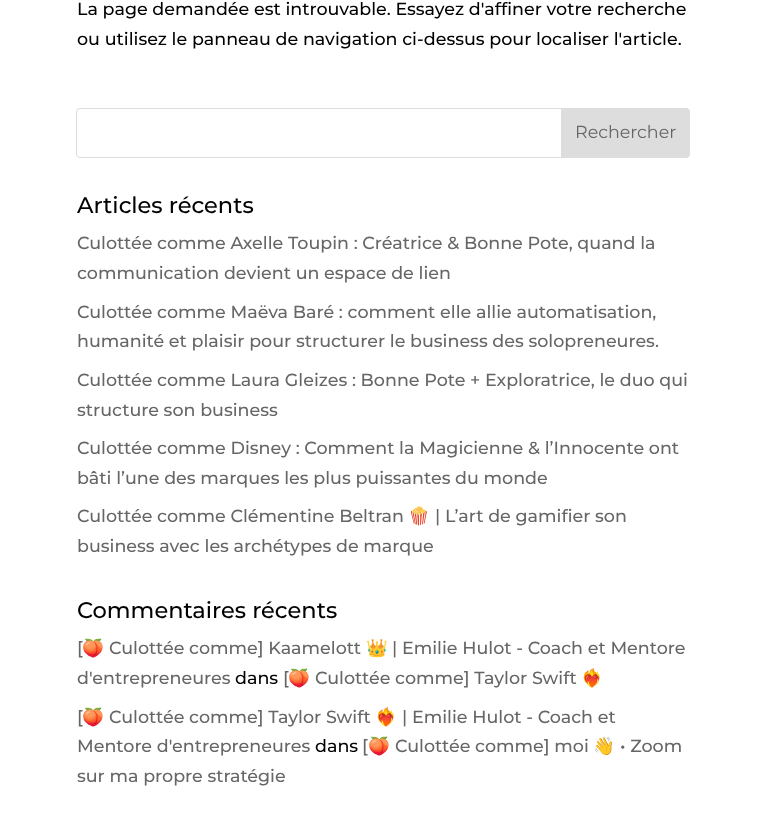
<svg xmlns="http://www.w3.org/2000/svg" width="766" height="831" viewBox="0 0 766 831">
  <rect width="100%" height="100%" fill="rgb(255,255,255)"/>
  <g font-family="Montserrat" font-size="17.5" font-weight="500" fill="rgb(0,0,0)">
    <text>
      <tspan x="77" y="15">La page demandée est introuvable. Essayez d'affiner votre recherche</tspan>
      <tspan x="77" y="45">ou utilisez le panneau de navigation ci-dessus pour localiser l'article.</tspan>
    </text>
  </g>
  <rect x="76.5" y="108.5" width="613" height="49" rx="3.5" fill="none" stroke="rgb(221,221,221)"/>
  <path d="M561.5 108.5H686C688 108.5 689.5 110 689.5 112V154C689.5 156 688 157.5 686 157.5H561.5Z" fill="rgb(221,221,221)" stroke="rgb(221,221,221)"/>
  <text x="575" y="138" font-family="Montserrat" font-size="17.5" fill="rgb(102,102,102)">Rechercher</text>
  <text x="77" y="213" font-family="Montserrat" font-size="22.5" font-weight="500" fill="rgb(0,0,0)">Articles récents</text>
  <g font-family="Montserrat" font-size="17.5" font-weight="500" fill="rgb(102,102,102)">
    <text>
      <tspan x="77" y="249">Culottée comme Axelle Toupin : Créatrice &amp; Bonne Pote, quand la</tspan>
      <tspan x="77" y="279">communication devient un espace de lien</tspan>
    </text>
    <text>
      <tspan x="77" y="318">Culottée comme Maëva Baré : comment elle allie automatisation,</tspan>
      <tspan x="77" y="347">humanité et plaisir pour structurer le business des solopreneures.</tspan>
    </text>
    <text>
      <tspan x="77" y="386">Culottée comme Laura Gleizes : Bonne Pote + Exploratrice, le duo qui</tspan>
      <tspan x="77" y="416">structure son business</tspan>
    </text>
    <text>
      <tspan x="77" y="454">Culottée comme Disney : Comment la Magicienne &amp; l’Innocente ont</tspan>
      <tspan x="77" y="484">bâti l’une des marques les plus puissantes du monde</tspan>
    </text>
    <text x="77" y="522">Culottée comme Clémentine Beltran</text>
  </g>
  <text x="408" y="522" font-family="Noto Color Emoji" font-size="17.5" fill="rgb(102,102,102)">🍿</text>
  <g font-family="Montserrat" font-size="17.5" font-weight="500" fill="rgb(102,102,102)">
    <text x="435" y="522">| L’art de gamifier son</text>
    <text x="77" y="552">business avec les archétypes de marque</text>
  </g>
  <text x="77" y="618" font-family="Montserrat" font-size="22.5" font-weight="500" fill="rgb(0,0,0)">Commentaires récents</text>
  <text x="77" y="654" font-family="Montserrat" font-size="17.5" font-weight="500" fill="rgb(102,102,102)">[</text>
  <text x="82" y="654" font-family="Noto Color Emoji" font-size="17.5" fill="rgb(102,102,102)">🍑</text>
  <text x="109" y="654" font-family="Montserrat" font-size="17.5" font-weight="500" fill="rgb(102,102,102)">Culottée comme] Kaamelott</text>
  <text x="366" y="654" font-family="Noto Color Emoji" font-size="17.5" fill="rgb(102,102,102)">👑</text>
  <g font-family="Montserrat" font-size="17.5" font-weight="500" fill="rgb(102,102,102)">
    <text x="392" y="654">| Emilie Hulot - Coach et Mentore</text>
    <text x="77" y="684">d'entrepreneures</text>
  </g>
  <text x="235" y="684" font-family="Montserrat" font-size="17.5" font-weight="500" fill="rgb(0,0,0)">dans</text>
  <text x="283" y="684" font-family="Montserrat" font-size="17.5" font-weight="500" fill="rgb(102,102,102)">[</text>
  <text x="288" y="684" font-family="Noto Color Emoji" font-size="17.5" fill="rgb(102,102,102)">🍑</text>
  <text x="315" y="684" font-family="Montserrat" font-size="17.5" font-weight="500" fill="rgb(102,102,102)">Culottée comme] Taylor Swift</text>
  <text x="581" y="684" font-family="Noto Color Emoji" font-size="17.5" fill="rgb(102,102,102)">❤️‍🔥</text>
  <text x="77" y="723" font-family="Montserrat" font-size="17.5" font-weight="500" fill="rgb(102,102,102)">[</text>
  <text x="82" y="723" font-family="Noto Color Emoji" font-size="17.5" fill="rgb(102,102,102)">🍑</text>
  <text x="109" y="723" font-family="Montserrat" font-size="17.5" font-weight="500" fill="rgb(102,102,102)">Culottée comme] Taylor Swift</text>
  <text x="375" y="723" font-family="Noto Color Emoji" font-size="17.5" fill="rgb(102,102,102)">❤️‍🔥</text>
  <g font-family="Montserrat" font-size="17.5" font-weight="500" fill="rgb(102,102,102)">
    <text x="402" y="723">| Emilie Hulot - Coach et</text>
    <text x="77" y="752">Mentore d'entrepreneures</text>
  </g>
  <text x="315" y="752" font-family="Montserrat" font-size="17.5" font-weight="500" fill="rgb(0,0,0)">dans</text>
  <text x="362" y="752" font-family="Montserrat" font-size="17.5" font-weight="500" fill="rgb(102,102,102)">[</text>
  <text x="368" y="752" font-family="Noto Color Emoji" font-size="17.5" fill="rgb(102,102,102)">🍑</text>
  <text x="395" y="752" font-family="Montserrat" font-size="17.5" font-weight="500" fill="rgb(102,102,102)">Culottée comme] moi</text>
  <text x="593" y="752" font-family="Noto Color Emoji" font-size="17.5" fill="rgb(102,102,102)">👋</text>
  <g font-family="Montserrat" font-size="17.5" font-weight="500" fill="rgb(102,102,102)">
    <text x="620" y="752">• Zoom</text>
    <text x="77" y="782">sur ma propre stratégie</text>
  </g>
</svg>
